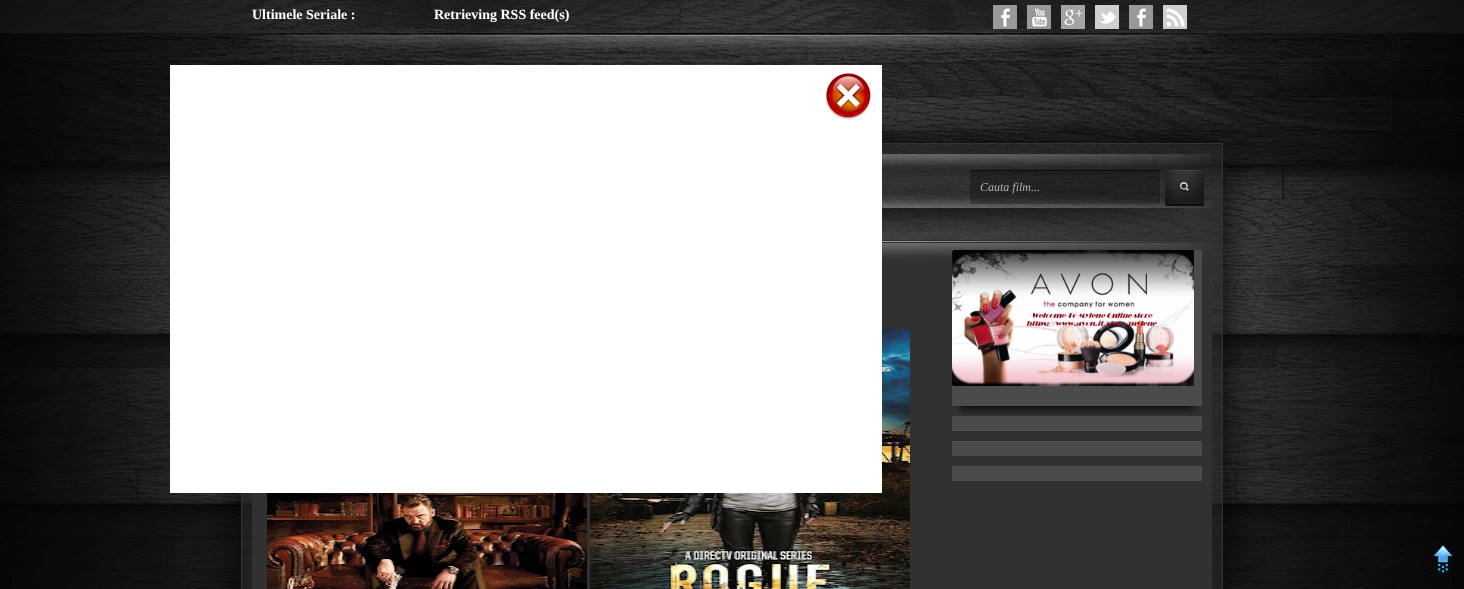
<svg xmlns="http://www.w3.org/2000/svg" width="1464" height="589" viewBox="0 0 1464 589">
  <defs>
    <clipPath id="clip1"><path d="M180 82H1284V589H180ZM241 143H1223V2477H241Z" clip-rule="evenodd"/></clipPath>
  </defs>
  <rect width="100%" height="100%" fill="rgb(255,255,255)"/>
  <image x="0" y="0" width="1464" height="589" href="pic1.png"/>
  <rect x="0" y="0" width="1464" height="33" fill="rgba(255,255,255,0.05)"/>
  <g font-family="Liberation Serif" font-size="14" font-weight="bold" fill="rgb(255,255,255)">
    <text x="252" y="19">Ultimele Seriale :</text>
    <text x="434" y="19">Retrieving RSS feed(s)</text>
  </g>
  <image x="993" y="5" width="24" height="24" href="pic2.png"/>
  <image x="1027" y="5" width="24" height="24" href="pic3.png"/>
  <image x="1061" y="5" width="24" height="24" href="pic4.png"/>
  <image x="1095" y="5" width="24" height="24" href="pic5.png"/>
  <image x="1129" y="5" width="24" height="24" href="pic2.png"/>
  <image x="1163" y="5" width="24" height="24" href="pic6.png"/>
  <image x="249" y="33" width="969" height="20" href="pic7.png"/>
  <g clip-path="url(#clip1)">
    <rect x="241" y="143" width="982" height="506" fill="rgb(0,0,0)" filter="blur(20px)"/>
  </g>
  <rect x="241.5" y="143.5" width="981" height="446" fill="rgba(37,37,37,0.59)" stroke="rgb(51,51,51)"/>
  <rect x="252" y="240" width="960" height="349" fill="rgb(49,49,49)"/>
  <image x="590" y="329" width="320" height="260" href="pic16.png"/>
  <rect x="170" y="65" width="712" height="428" fill="rgb(255,255,255)"/>
  <image x="825" y="73" width="47" height="47" href="pic8.png"/>
  <image x="1433" y="545" width="20" height="30" href="pic9.png"/>
  <image x="882" y="154" width="330" height="54" href="pic10.png"/>
  <image x="970" y="170" width="190" height="34" href="pic11.png"/>
  <text x="980" y="191" font-family="Liberation Serif" font-size="12" font-style="italic" fill="rgb(181,181,181)">Cauta film...</text>
  <image x="1165" y="170" width="39" height="36" href="pic12.png"/>
  <image x="882" y="208" width="303" height="24" href="pic13.png"/>
  <image x="882" y="241" width="330" height="18" href="pic14.png"/>
  <image x="267" y="493" width="320" height="96" href="pic15.png"/>
  <rect x="960" y="268" width="234" height="140" fill="rgb(0,0,0)" filter="blur(4px)"/>
  <rect x="952" y="250" width="250" height="156" fill="rgb(75,75,75)"/>
  <image x="952" y="250" width="242" height="136" href="pic17.png"/>
  <rect x="952" y="416" width="250" height="15" fill="rgb(75,75,75)"/>
  <rect x="952" y="441" width="250" height="15" fill="rgb(75,75,75)"/>
  <rect x="952" y="466" width="250" height="15" fill="rgb(75,75,75)"/>
</svg>
